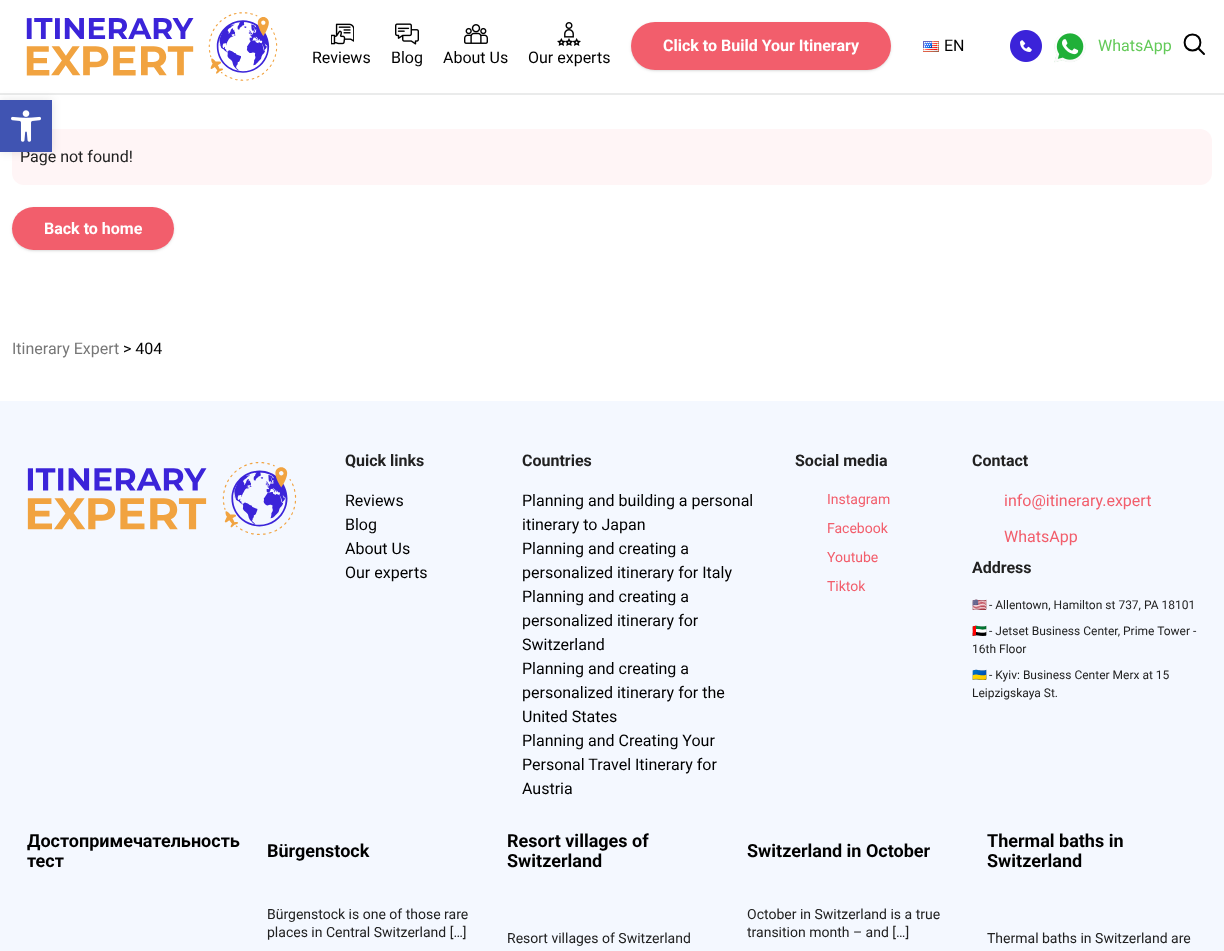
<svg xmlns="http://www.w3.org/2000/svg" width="1224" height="951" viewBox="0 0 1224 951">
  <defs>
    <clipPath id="clip1"><path d="M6 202H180V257H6ZM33.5 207H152.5C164.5 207 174 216.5 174 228.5C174 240.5 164.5 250 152.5 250H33.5C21.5 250 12 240.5 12 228.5C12 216.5 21.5 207 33.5 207Z" clip-rule="evenodd"/></clipPath>
  </defs>
  <rect width="100%" height="100%" fill="rgb(255,255,255)"/>
  <rect x="0" y="93" width="1224" height="2" fill="rgb(234,235,235)"/>
  <image x="26" y="12" width="252" height="69" href="pic1.png"/>
  <rect x="632" y="24" width="258" height="46" rx="23" fill="rgba(0,0,0,0.1)" filter="blur(1px)"/>
  <rect x="631" y="23" width="260" height="48" rx="24" fill="rgba(0,0,0,0.1)" filter="blur(1.5px)"/>
  <rect x="631" y="22" width="260" height="48" rx="24" fill="rgb(242,94,108)"/>
  <text x="663" y="51" font-family="Roboto" font-size="16" font-weight="bold" fill="rgb(255,255,255)">Click to Build Your Itinerary</text>
  <image x="923" y="41" width="16" height="11" href="pic2.png"/>
  <text x="944" y="51" font-family="Roboto" font-size="16" fill="rgb(0,0,0)">EN</text>
  <image x="1010" y="30" width="32" height="32" href="pic3.png"/>
  <image x="1054" y="31" width="32" height="32" href="pic4.png"/>
  <text x="1098" y="51" font-family="Roboto" font-size="16" fill="rgb(100,202,89)">WhatsApp</text>
  <path d="M1199 49L1204 54M1192.5 50.5C1203 50.5 1203 34.5 1192.5 34.5C1182 34.5 1182 50.5 1192.5 50.5Z" fill="none" stroke="rgb(0,0,0)" stroke-width="2" stroke-linecap="round" stroke-linejoin="round"/>
  <image x="331" y="23" width="23" height="22" href="pic5.png"/>
  <text x="312" y="63" font-family="Roboto" font-size="16" fill="rgb(0,0,0)">Reviews</text>
  <image x="395" y="23" width="24" height="22" href="pic6.png"/>
  <text x="391" y="63" font-family="Roboto" font-size="16" fill="rgb(0,0,0)">Blog</text>
  <image x="464" y="24" width="24" height="20" href="pic7.png"/>
  <text x="443" y="63" font-family="Roboto" font-size="16" fill="rgb(0,0,0)">About Us</text>
  <image x="557" y="22" width="24" height="24" href="pic8.png"/>
  <text x="528" y="63" font-family="Roboto" font-size="16" fill="rgb(0,0,0)">Our experts</text>
  <rect x="12" y="129" width="1200" height="56" rx="12" fill="rgb(255,245,246)"/>
  <text x="20" y="162" font-family="Roboto" font-size="16" fill="rgb(33,33,33)">Page not found!</text>
  <rect x="13" y="209" width="160" height="41" rx="20.5" fill="rgba(0,0,0,0.1)" filter="blur(1px)"/>
  <g clip-path="url(#clip1)">
    <rect x="12" y="208" width="162" height="43" rx="21.5" fill="rgba(0,0,0,0.1)" filter="blur(1.5px)"/>
  </g>
  <rect x="12" y="207" width="162" height="43" rx="21.5" fill="rgb(242,94,108)"/>
  <text x="44" y="234" font-family="Roboto" font-size="16" font-weight="bold" fill="rgb(255,255,255)">Back to home</text>
  <text x="12" y="354" font-family="Roboto" font-size="16" fill="rgb(119,119,119)">Itinerary Expert</text>
  <text x="123" y="354" font-family="Roboto" font-size="16" fill="rgb(0,0,0)">&gt; 404</text>
  <rect x="0" y="401" width="1224" height="550" fill="rgb(244,248,255)"/>
  <image x="27" y="462" width="270" height="73" href="pic9.png"/>
  <text x="345" y="466" font-family="Roboto" font-size="16" font-weight="bold" fill="rgb(33,33,33)">Quick links</text>
  <g font-family="Roboto" font-size="16" fill="rgb(0,0,0)">
    <text>
      <tspan x="345" y="506">Reviews</tspan>
      <tspan x="345" y="530">Blog</tspan>
      <tspan x="345" y="554">About Us</tspan>
      <tspan x="345" y="578">Our experts</tspan>
    </text>
  </g>
  <text x="522" y="466" font-family="Roboto" font-size="16" font-weight="bold" fill="rgb(33,33,33)">Countries</text>
  <g font-family="Roboto" font-size="16" fill="rgb(0,0,0)">
    <text>
      <tspan x="522" y="506">Planning and building a personal</tspan>
      <tspan x="522" y="530">itinerary to Japan</tspan>
      <tspan x="522" y="554">Planning and creating a</tspan>
      <tspan x="522" y="578">personalized itinerary for Italy</tspan>
      <tspan x="522" y="602">Planning and creating a</tspan>
      <tspan x="522" y="626">personalized itinerary for</tspan>
      <tspan x="522" y="650">Switzerland</tspan>
      <tspan x="522" y="674">Planning and creating a</tspan>
      <tspan x="522" y="698">personalized itinerary for the</tspan>
      <tspan x="522" y="722">United States</tspan>
      <tspan x="522" y="746">Planning and Creating Your</tspan>
      <tspan x="522" y="770">Personal Travel Itinerary for</tspan>
      <tspan x="522" y="794">Austria</tspan>
    </text>
  </g>
  <text x="795" y="466" font-family="Roboto" font-size="16" font-weight="bold" fill="rgb(33,33,33)">Social media</text>
  <g font-family="Roboto" font-size="14" fill="rgb(242,94,108)">
    <text x="827" y="504">Instagram</text>
    <text x="827" y="533">Facebook</text>
    <text x="827" y="562">Youtube</text>
    <text x="827" y="591">Tiktok</text>
  </g>
  <text x="972" y="466" font-family="Roboto" font-size="16" font-weight="bold" fill="rgb(33,33,33)">Contact</text>
  <g font-family="Roboto" font-size="16" fill="rgb(242,94,108)">
    <text x="1004" y="506">info@itinerary.expert</text>
    <text x="1004" y="542">WhatsApp</text>
  </g>
  <text x="972" y="573" font-family="Roboto" font-size="16" font-weight="bold" fill="rgb(33,33,33)">Address</text>
  <text x="972" y="609" font-family="Noto Color Emoji" font-size="12" fill="rgb(33,33,33)">🇺🇸</text>
  <text x="989" y="609" font-family="Roboto" font-size="12" fill="rgb(33,33,33)">- Allentown, Hamilton st 737, PA 18101</text>
  <text x="972" y="635" font-family="Noto Color Emoji" font-size="12" fill="rgb(33,33,33)">🇦🇪</text>
  <g font-family="Roboto" font-size="12" fill="rgb(33,33,33)">
    <text x="989" y="635">- Jetset Business Center, Prime Tower -</text>
    <text x="972" y="653">16th Floor</text>
  </g>
  <text x="972" y="679" font-family="Noto Color Emoji" font-size="12" fill="rgb(33,33,33)">🇺🇦</text>
  <g font-family="Roboto" font-size="12" fill="rgb(33,33,33)">
    <text x="989" y="679">- Kyiv: Business Center Merx at 15</text>
    <text x="972" y="697">Leipzigskaya St.</text>
  </g>
  <g font-family="Roboto" font-size="18" font-weight="bold" fill="rgb(0,0,0)">
    <text>
      <tspan x="27" y="847">Достопримечательность</tspan>
      <tspan x="27" y="867">тест</tspan>
    </text>
    <text x="267" y="857">Bürgenstock</text>
  </g>
  <g font-family="Roboto" font-size="14" fill="rgb(33,33,33)">
    <text>
      <tspan x="267" y="919">Bürgenstock is one of those rare</tspan>
      <tspan x="267" y="937">places in Central Switzerland […]</tspan>
    </text>
  </g>
  <g font-family="Roboto" font-size="18" font-weight="bold" fill="rgb(0,0,0)">
    <text>
      <tspan x="507" y="847">Resort villages of</tspan>
      <tspan x="507" y="867">Switzerland</tspan>
    </text>
  </g>
  <text x="507" y="943" font-family="Roboto" font-size="14" fill="rgb(33,33,33)">Resort villages of Switzerland</text>
  <text x="747" y="857" font-family="Roboto" font-size="18" font-weight="bold" fill="rgb(0,0,0)">Switzerland in October</text>
  <g font-family="Roboto" font-size="14" fill="rgb(33,33,33)">
    <text>
      <tspan x="747" y="919">October in Switzerland is a true</tspan>
      <tspan x="747" y="937">transition month – and […]</tspan>
    </text>
  </g>
  <g font-family="Roboto" font-size="18" font-weight="bold" fill="rgb(0,0,0)">
    <text>
      <tspan x="987" y="847">Thermal baths in</tspan>
      <tspan x="987" y="867">Switzerland</tspan>
    </text>
  </g>
  <text x="987" y="943" font-family="Roboto" font-size="14" fill="rgb(33,33,33)">Thermal baths in Switzerland are</text>
  <rect x="0" y="100" width="52" height="52" fill="rgba(0,0,0,0.1)" filter="blur(5px)"/>
  <rect x="0" y="100" width="52" height="52" fill="rgb(64,84,178)"/>
  <image x="11" y="110" width="30" height="32" href="pic10.png"/>
</svg>
